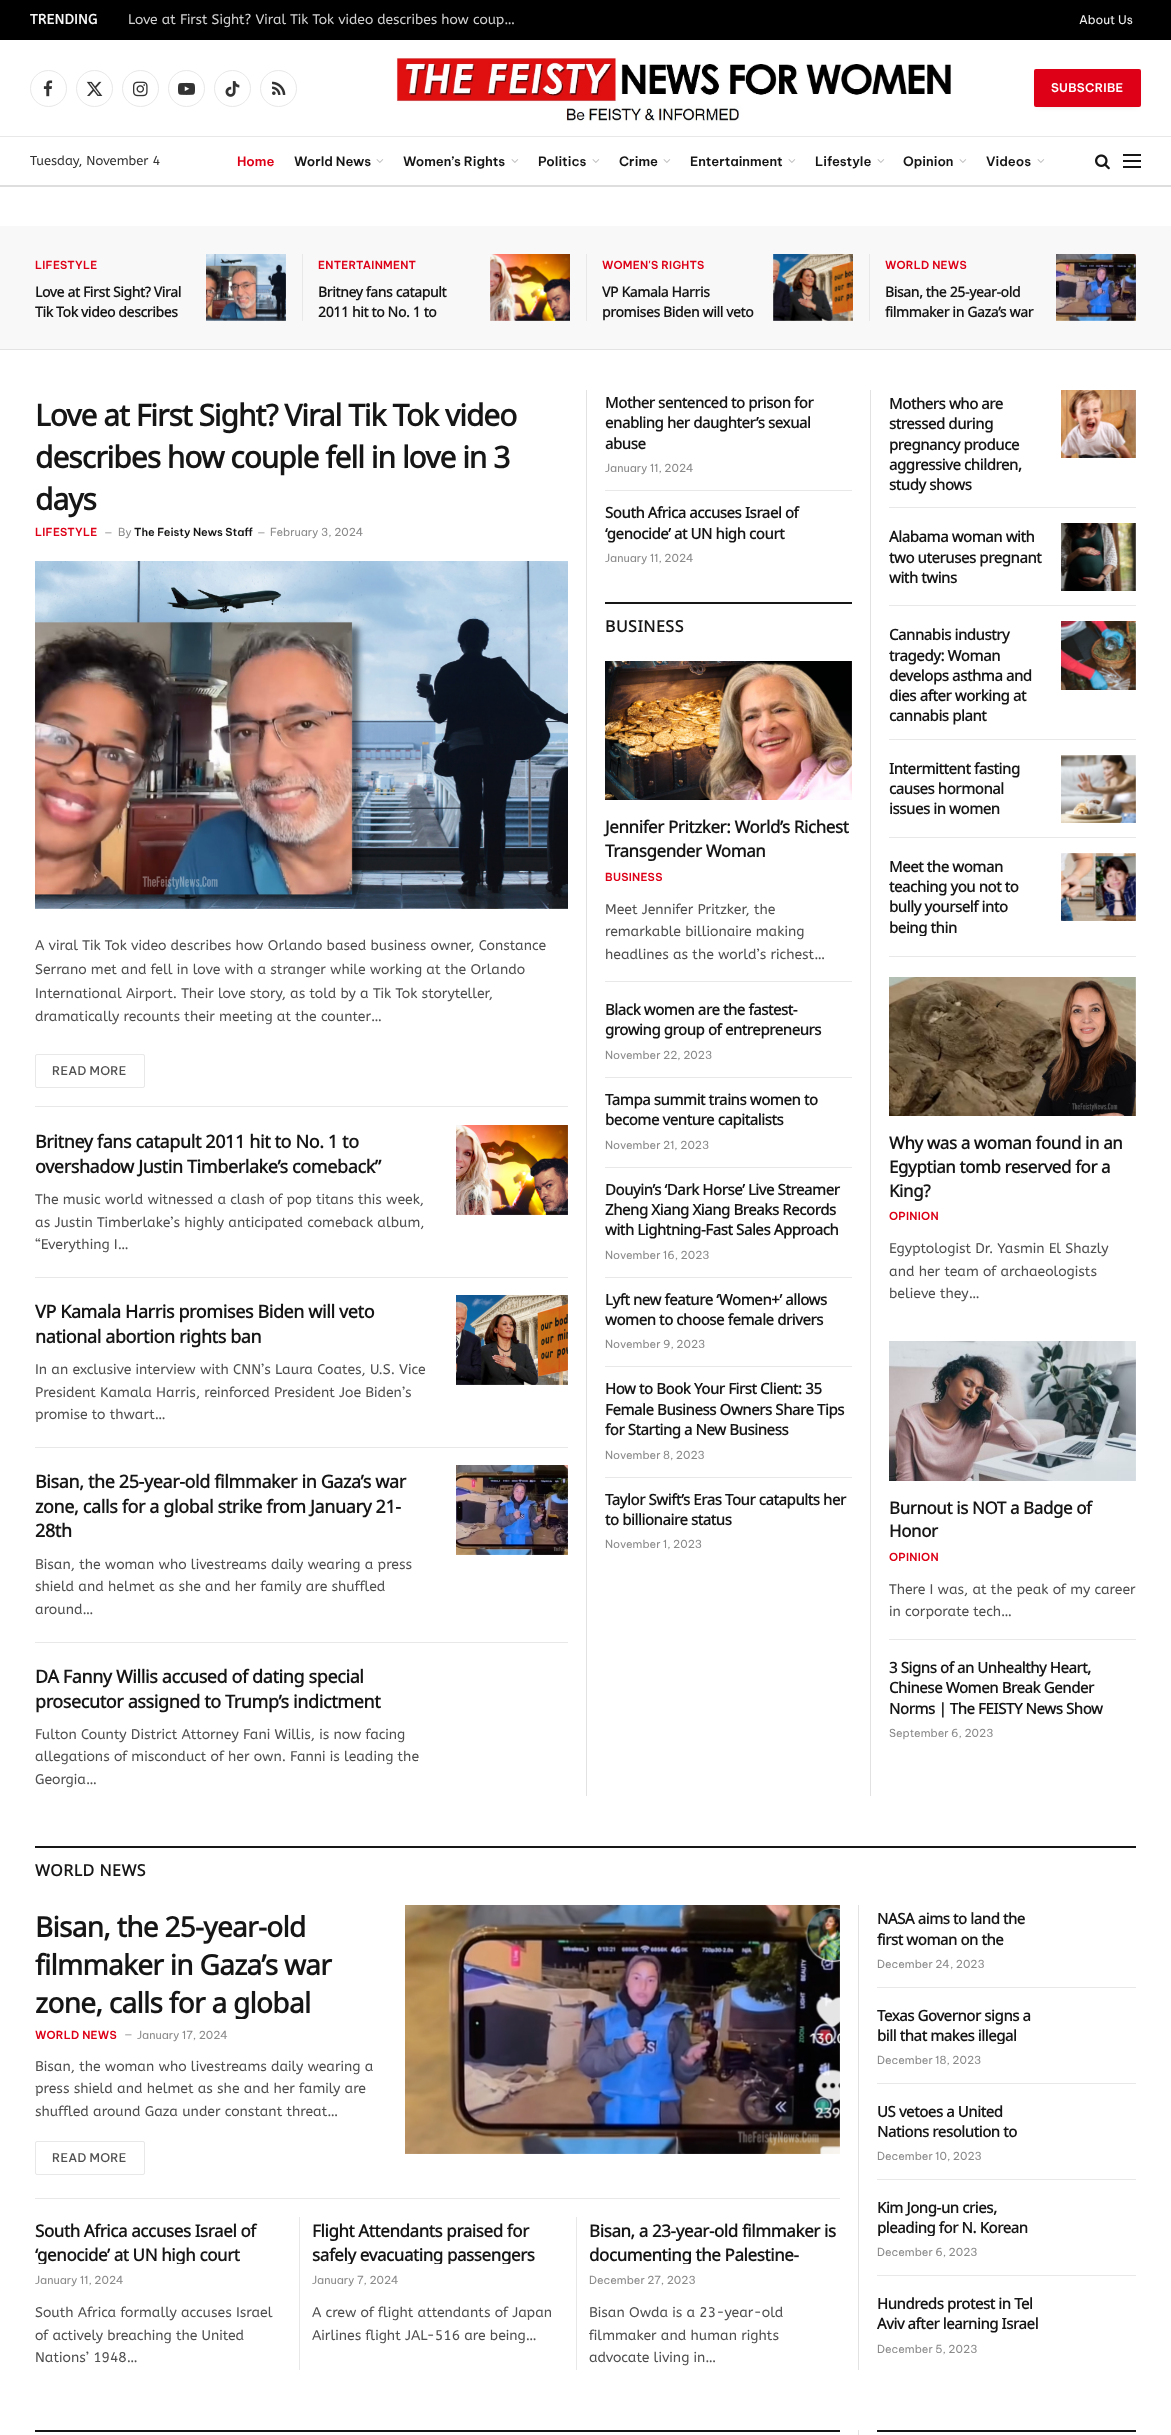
<svg xmlns="http://www.w3.org/2000/svg" width="1171" height="2435" viewBox="0 0 1171 2435">
  <defs>
    <clipPath id="clip1"><rect x="889" y="390" width="247" height="546"/></clipPath>
    <clipPath id="clip2"><rect x="35" y="1905" width="340" height="114"/></clipPath>
    <clipPath id="clip3"><rect x="35" y="2217" width="251" height="47"/></clipPath>
    <clipPath id="clip4"><rect x="312" y="2217" width="251" height="47"/></clipPath>
    <clipPath id="clip5"><rect x="589" y="2217" width="251" height="47"/></clipPath>
    <clipPath id="clip6"><rect x="877" y="2004" width="166" height="40"/></clipPath>
    <clipPath id="clip7"><rect x="877" y="2196" width="166" height="40"/></clipPath>
  </defs>
  <rect width="100%" height="100%" fill="rgb(255,255,255)"/>
  <rect x="0" y="0" width="1171" height="40" fill="rgb(0,0,0)"/>
  <text x="30" y="24" font-family="ABeeZee" font-size="13.8" font-weight="bold" letter-spacing="0.25" fill="rgb(247,247,247)">TRENDING</text>
  <text x="128" y="24" font-family="ABeeZee" font-size="13.8" fill="rgb(209,209,209)">Love at First Sight? Viral Tik Tok video describes how coup…</text>
  <text x="1079" y="24" font-family="Be Vietnam Pro" font-size="12" fill="rgb(240,240,240)">About Us</text>
  <circle cx="48.5" cy="88.5" r="18" fill="none" stroke="rgb(232,232,232)"/>
  <image x="43" y="80" width="10" height="17" href="pic1.png"/>
  <circle cx="94.5" cy="88.5" r="18" fill="none" stroke="rgb(232,232,232)"/>
  <image x="86" y="81" width="17" height="15" href="pic2.png"/>
  <circle cx="140.5" cy="88.5" r="18" fill="none" stroke="rgb(232,232,232)"/>
  <image x="133" y="81" width="15" height="16" href="pic3.png"/>
  <circle cx="186.5" cy="88.5" r="18" fill="none" stroke="rgb(232,232,232)"/>
  <image x="178" y="82" width="17" height="13" href="pic4.png"/>
  <circle cx="232.5" cy="88.5" r="18" fill="none" stroke="rgb(232,232,232)"/>
  <image x="225" y="81" width="15" height="16" href="pic5.png"/>
  <circle cx="278.5" cy="88.5" r="18" fill="none" stroke="rgb(232,232,232)"/>
  <image x="272" y="81" width="14" height="14" href="pic6.png"/>
  <image x="396" y="57" width="555" height="65" href="pic7.png"/>
  <rect x="1038" y="75" width="99" height="30" fill="rgba(0,0,0,0.16)" filter="blur(3.5px)"/>
  <rect x="1034" y="69" width="107" height="38" rx="2" fill="rgb(221,0,23)"/>
  <text x="1051" y="92" font-family="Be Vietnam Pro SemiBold" font-size="12" font-weight="600" letter-spacing="0.25" fill="rgb(255,255,255)">SUBSCRIBE</text>
  <rect x="0" y="136" width="1171" height="1" fill="rgb(232,232,232)"/>
  <rect x="0" y="185" width="1171" height="2" fill="rgb(222,222,222)"/>
  <text x="30" y="165" font-family="ABeeZee" font-size="13" fill="rgb(51,51,51)">Tuesday, November 4</text>
  <text x="237" y="166" font-family="Be Vietnam Pro SemiBold" font-size="13" font-weight="600" fill="rgb(221,0,23)">Home</text>
  <text x="294" y="166" font-family="Be Vietnam Pro SemiBold" font-size="13" font-weight="600" fill="rgb(22,22,22)">World News</text>
  <image x="376" y="159" width="8" height="4" href="pic8.png"/>
  <text x="403" y="166" font-family="Be Vietnam Pro SemiBold" font-size="13" font-weight="600" fill="rgb(22,22,22)">Women’s Rights</text>
  <image x="511" y="159" width="8" height="4" href="pic8.png"/>
  <text x="538" y="166" font-family="Be Vietnam Pro SemiBold" font-size="13" font-weight="600" fill="rgb(22,22,22)">Politics</text>
  <image x="592" y="159" width="8" height="4" href="pic8.png"/>
  <text x="619" y="166" font-family="Be Vietnam Pro SemiBold" font-size="13" font-weight="600" fill="rgb(22,22,22)">Crime</text>
  <image x="663" y="159" width="8" height="4" href="pic8.png"/>
  <text x="690" y="166" font-family="Be Vietnam Pro SemiBold" font-size="13" font-weight="600" fill="rgb(22,22,22)">Entertainment</text>
  <image x="788" y="159" width="8" height="4" href="pic8.png"/>
  <text x="815" y="166" font-family="Be Vietnam Pro SemiBold" font-size="13" font-weight="600" fill="rgb(22,22,22)">Lifestyle</text>
  <image x="877" y="159" width="8" height="4" href="pic8.png"/>
  <text x="903" y="166" font-family="Be Vietnam Pro SemiBold" font-size="13" font-weight="600" fill="rgb(22,22,22)">Opinion</text>
  <image x="959" y="159" width="8" height="4" href="pic8.png"/>
  <text x="986" y="166" font-family="Be Vietnam Pro SemiBold" font-size="13" font-weight="600" fill="rgb(22,22,22)">Videos</text>
  <image x="1037" y="159" width="8" height="4" href="pic8.png"/>
  <image x="1095" y="154" width="15" height="16" href="pic9.png"/>
  <rect x="1123" y="166" width="18" height="2" fill="rgb(22,22,22)"/>
  <rect x="1123" y="154" width="18" height="2" fill="rgb(22,22,22)"/>
  <rect x="1123" y="160" width="18" height="2" fill="rgb(22,22,22)"/>
  <rect x="0" y="226" width="1171" height="123" fill="rgb(248,248,248)"/>
  <rect x="0" y="349" width="1171" height="1" fill="rgb(227,227,227)"/>
  <text x="35" y="269" font-family="Be Vietnam Pro SemiBold" font-size="11" font-weight="600" letter-spacing="0.25" fill="rgb(221,0,23)">LIFESTYLE</text>
  <g font-family="Noto Music" font-size="14" font-weight="bold" letter-spacing="-0.35" fill="rgb(22,22,22)">
    <text>
      <tspan x="35" y="297">Love at First Sight? Viral</tspan>
      <tspan x="35" y="317">Tik Tok video describes</tspan>
    </text>
  </g>
  <image x="206" y="254" width="80" height="67" href="pic10.png"/>
  <rect x="302" y="254" width="1" height="67" fill="rgb(232,232,232)"/>
  <text x="318" y="269" font-family="Be Vietnam Pro SemiBold" font-size="11" font-weight="600" letter-spacing="0.25" fill="rgb(221,0,23)">ENTERTAINMENT</text>
  <g font-family="Noto Music" font-size="14" font-weight="bold" letter-spacing="-0.35" fill="rgb(22,22,22)">
    <text>
      <tspan x="318" y="297">Britney fans catapult</tspan>
      <tspan x="318" y="317">2011 hit to No. 1 to</tspan>
    </text>
  </g>
  <image x="490" y="254" width="80" height="67" href="pic11.png"/>
  <rect x="586" y="254" width="1" height="67" fill="rgb(232,232,232)"/>
  <text x="602" y="269" font-family="Be Vietnam Pro SemiBold" font-size="11" font-weight="600" letter-spacing="0.25" fill="rgb(221,0,23)">WOMEN'S RIGHTS</text>
  <g font-family="Noto Music" font-size="14" font-weight="bold" letter-spacing="-0.35" fill="rgb(22,22,22)">
    <text>
      <tspan x="602" y="297">VP Kamala Harris</tspan>
      <tspan x="602" y="317">promises Biden will veto</tspan>
    </text>
  </g>
  <image x="773" y="254" width="80" height="67" href="pic12.png"/>
  <rect x="869" y="254" width="1" height="67" fill="rgb(232,232,232)"/>
  <text x="885" y="269" font-family="Be Vietnam Pro SemiBold" font-size="11" font-weight="600" letter-spacing="0.25" fill="rgb(221,0,23)">WORLD NEWS</text>
  <g font-family="Noto Music" font-size="14" font-weight="bold" letter-spacing="-0.35" fill="rgb(22,22,22)">
    <text>
      <tspan x="885" y="297">Bisan, the 25-year-old</tspan>
      <tspan x="885" y="317">filmmaker in Gaza’s war</tspan>
    </text>
  </g>
  <image x="1056" y="254" width="80" height="67" href="pic13.png"/>
  <g font-family="Noto Music" font-size="30" font-weight="bold" letter-spacing="-1" fill="rgb(22,22,22)">
    <text>
      <tspan x="35" y="426">Love at First Sight? Viral Tik Tok video</tspan>
      <tspan x="35" y="468">describes how couple fell in love in 3</tspan>
      <tspan x="35" y="510">days</tspan>
    </text>
  </g>
  <text x="35" y="536" font-family="Be Vietnam Pro SemiBold" font-size="11" font-weight="600" letter-spacing="0.25" fill="rgb(221,0,23)">LIFESTYLE</text>
  <text x="104" y="536" font-family="Be Vietnam Pro" font-size="10" fill="rgb(138,138,138)">—</text>
  <text x="118" y="536" font-family="Be Vietnam Pro" font-size="11" fill="rgb(138,138,138)">By</text>
  <text x="134" y="536" font-family="Be Vietnam Pro SemiBold" font-size="11" font-weight="600" fill="rgb(22,22,22)">The Feisty News Staff</text>
  <text x="257" y="536" font-family="Be Vietnam Pro" font-size="10" fill="rgb(138,138,138)">—</text>
  <text x="270" y="536" font-family="Be Vietnam Pro" font-size="11" fill="rgb(138,138,138)">February 3, 2024</text>
  <image x="35" y="561" width="533" height="348" href="pic14.png"/>
  <g font-family="ABeeZee" font-size="14" fill="rgb(80,80,80)">
    <text>
      <tspan x="35" y="950">A viral Tik Tok video describes how Orlando based business owner, Constance</tspan>
      <tspan x="35" y="974">Serrano met and fell in love with a stranger while working at the Orlando</tspan>
      <tspan x="35" y="998">International Airport. Their love story, as told by a Tik Tok storyteller,</tspan>
      <tspan x="35" y="1021">dramatically recounts their meeting at the counter…</tspan>
    </text>
  </g>
  <rect x="35.5" y="1054.5" width="109" height="33" rx="1.5" fill="none" stroke="rgb(232,232,232)"/>
  <text x="52" y="1075" font-family="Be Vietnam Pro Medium" font-size="12" font-weight="500" letter-spacing="0.25" fill="rgb(80,80,80)">READ MORE</text>
  <rect x="35" y="1106" width="533" height="1" fill="rgb(232,232,232)"/>
  <g font-family="Noto Music" font-size="18" font-weight="bold" letter-spacing="-0.4" fill="rgb(22,22,22)">
    <text>
      <tspan x="35" y="1148">Britney fans catapult 2011 hit to No. 1 to</tspan>
      <tspan x="35" y="1173">overshadow Justin Timberlake’s comeback”</tspan>
    </text>
  </g>
  <g font-family="ABeeZee" font-size="14" fill="rgb(80,80,80)">
    <text>
      <tspan x="35" y="1204">The music world witnessed a clash of pop titans this week,</tspan>
      <tspan x="35" y="1227">as Justin Timberlake’s highly anticipated comeback album,</tspan>
      <tspan x="35" y="1249">“Everything I…</tspan>
    </text>
  </g>
  <image x="456" y="1125" width="112" height="90" href="pic15.png"/>
  <rect x="35" y="1277" width="533" height="1" fill="rgb(232,232,232)"/>
  <g font-family="Noto Music" font-size="18" font-weight="bold" letter-spacing="-0.4" fill="rgb(22,22,22)">
    <text>
      <tspan x="35" y="1318">VP Kamala Harris promises Biden will veto</tspan>
      <tspan x="35" y="1343">national abortion rights ban</tspan>
    </text>
  </g>
  <g font-family="ABeeZee" font-size="14" fill="rgb(80,80,80)">
    <text>
      <tspan x="35" y="1374">In an exclusive interview with CNN’s Laura Coates, U.S. Vice</tspan>
      <tspan x="35" y="1397">President Kamala Harris, reinforced President Joe Biden’s</tspan>
      <tspan x="35" y="1419">promise to thwart…</tspan>
    </text>
  </g>
  <image x="456" y="1295" width="112" height="90" href="pic16.png"/>
  <rect x="35" y="1447" width="533" height="1" fill="rgb(232,232,232)"/>
  <g font-family="Noto Music" font-size="18" font-weight="bold" letter-spacing="-0.4" fill="rgb(22,22,22)">
    <text>
      <tspan x="35" y="1488">Bisan, the 25-year-old filmmaker in Gaza’s war</tspan>
      <tspan x="35" y="1513">zone, calls for a global strike from January 21-</tspan>
      <tspan x="35" y="1537">28th</tspan>
    </text>
  </g>
  <g font-family="ABeeZee" font-size="14" fill="rgb(80,80,80)">
    <text>
      <tspan x="35" y="1569">Bisan, the woman who livestreams daily wearing a press</tspan>
      <tspan x="35" y="1591">shield and helmet as she and her family are shuffled</tspan>
      <tspan x="35" y="1614">around…</tspan>
    </text>
  </g>
  <image x="456" y="1465" width="112" height="90" href="pic17.png"/>
  <rect x="35" y="1642" width="533" height="1" fill="rgb(232,232,232)"/>
  <g font-family="Noto Music" font-size="18" font-weight="bold" letter-spacing="-0.4" fill="rgb(22,22,22)">
    <text>
      <tspan x="35" y="1683">DA Fanny Willis accused of dating special</tspan>
      <tspan x="35" y="1708">prosecutor assigned to Trump’s indictment</tspan>
    </text>
  </g>
  <g font-family="ABeeZee" font-size="14" fill="rgb(80,80,80)">
    <text>
      <tspan x="35" y="1739">Fulton County District Attorney Fani Willis, is now facing</tspan>
      <tspan x="35" y="1761">allegations of misconduct of her own. Fanni is leading the</tspan>
      <tspan x="35" y="1784">Georgia…</tspan>
    </text>
  </g>
  <rect x="586" y="390" width="1" height="1406" fill="rgb(226,226,226)"/>
  <g font-family="Noto Music" font-size="15" font-weight="bold" letter-spacing="-0.4" fill="rgb(22,22,22)">
    <text>
      <tspan x="605" y="408">Mother sentenced to prison for</tspan>
      <tspan x="605" y="428">enabling her daughter’s sexual</tspan>
      <tspan x="605" y="449">abuse</tspan>
    </text>
  </g>
  <text x="605" y="472" font-family="Be Vietnam Pro" font-size="11" fill="rgb(138,138,138)">January 11, 2024</text>
  <rect x="605" y="490" width="247" height="1" fill="rgb(232,232,232)"/>
  <g font-family="Noto Music" font-size="15" font-weight="bold" letter-spacing="-0.4" fill="rgb(22,22,22)">
    <text>
      <tspan x="605" y="518">South Africa accuses Israel of</tspan>
      <tspan x="605" y="539">‘genocide’ at UN high court</tspan>
    </text>
  </g>
  <text x="605" y="562" font-family="Be Vietnam Pro" font-size="11" fill="rgb(138,138,138)">January 11, 2024</text>
  <rect x="605" y="602" width="247" height="2" fill="rgb(22,22,22)"/>
  <text x="605" y="632" font-family="Noto Music" font-size="16" font-weight="bold" letter-spacing="0.5" fill="rgb(22,22,22)">BUSINESS</text>
  <image x="605" y="661" width="247" height="139" href="pic18.png"/>
  <g font-family="Noto Music" font-size="17" font-weight="bold" letter-spacing="-0.4" fill="rgb(22,22,22)">
    <text>
      <tspan x="605" y="833">Jennifer Pritzker: World’s Richest</tspan>
      <tspan x="605" y="857">Transgender Woman</tspan>
    </text>
  </g>
  <text x="605" y="881" font-family="Be Vietnam Pro SemiBold" font-size="11" font-weight="600" letter-spacing="0.25" fill="rgb(221,0,23)">BUSINESS</text>
  <g font-family="ABeeZee" font-size="14" fill="rgb(80,80,80)">
    <text>
      <tspan x="605" y="914">Meet Jennifer Pritzker, the</tspan>
      <tspan x="605" y="936">remarkable billionaire making</tspan>
      <tspan x="605" y="959">headlines as the world’s richest…</tspan>
    </text>
  </g>
  <rect x="605" y="981" width="247" height="1" fill="rgb(232,232,232)"/>
  <g font-family="Noto Music" font-size="15" font-weight="bold" letter-spacing="-0.4" fill="rgb(22,22,22)">
    <text>
      <tspan x="605" y="1015">Black women are the fastest-</tspan>
      <tspan x="605" y="1035">growing group of entrepreneurs</tspan>
    </text>
  </g>
  <text x="605" y="1059" font-family="Be Vietnam Pro" font-size="11" fill="rgb(138,138,138)">November 22, 2023</text>
  <rect x="605" y="1077" width="247" height="1" fill="rgb(232,232,232)"/>
  <g font-family="Noto Music" font-size="15" font-weight="bold" letter-spacing="-0.4" fill="rgb(22,22,22)">
    <text>
      <tspan x="605" y="1105">Tampa summit trains women to</tspan>
      <tspan x="605" y="1125">become venture capitalists</tspan>
    </text>
  </g>
  <text x="605" y="1149" font-family="Be Vietnam Pro" font-size="11" fill="rgb(138,138,138)">November 21, 2023</text>
  <rect x="605" y="1167" width="247" height="1" fill="rgb(232,232,232)"/>
  <g font-family="Noto Music" font-size="15" font-weight="bold" letter-spacing="-0.4" fill="rgb(22,22,22)">
    <text>
      <tspan x="605" y="1195">Douyin’s ‘Dark Horse’ Live Streamer</tspan>
      <tspan x="605" y="1215">Zheng Xiang Xiang Breaks Records</tspan>
      <tspan x="605" y="1235">with Lightning-Fast Sales Approach</tspan>
    </text>
  </g>
  <text x="605" y="1259" font-family="Be Vietnam Pro" font-size="11" fill="rgb(138,138,138)">November 16, 2023</text>
  <rect x="605" y="1277" width="247" height="1" fill="rgb(232,232,232)"/>
  <g font-family="Noto Music" font-size="15" font-weight="bold" letter-spacing="-0.4" fill="rgb(22,22,22)">
    <text>
      <tspan x="605" y="1305">Lyft new feature ‘Women+’ allows</tspan>
      <tspan x="605" y="1325">women to choose female drivers</tspan>
    </text>
  </g>
  <text x="605" y="1348" font-family="Be Vietnam Pro" font-size="11" fill="rgb(138,138,138)">November 9, 2023</text>
  <rect x="605" y="1366" width="247" height="1" fill="rgb(232,232,232)"/>
  <g font-family="Noto Music" font-size="15" font-weight="bold" letter-spacing="-0.4" fill="rgb(22,22,22)">
    <text>
      <tspan x="605" y="1394">How to Book Your First Client: 35</tspan>
      <tspan x="605" y="1415">Female Business Owners Share Tips</tspan>
      <tspan x="605" y="1435">for Starting a New Business</tspan>
    </text>
  </g>
  <text x="605" y="1459" font-family="Be Vietnam Pro" font-size="11" fill="rgb(138,138,138)">November 8, 2023</text>
  <rect x="605" y="1477" width="247" height="1" fill="rgb(232,232,232)"/>
  <g font-family="Noto Music" font-size="15" font-weight="bold" letter-spacing="-0.4" fill="rgb(22,22,22)">
    <text>
      <tspan x="605" y="1505">Taylor Swift’s Eras Tour catapults her</tspan>
      <tspan x="605" y="1525">to billionaire status</tspan>
    </text>
  </g>
  <text x="605" y="1548" font-family="Be Vietnam Pro" font-size="11" fill="rgb(138,138,138)">November 1, 2023</text>
  <rect x="870" y="390" width="1" height="1406" fill="rgb(226,226,226)"/>
  <g font-family="Noto Music" font-size="15" font-weight="bold" letter-spacing="-0.4" fill="rgb(22,22,22)">
    <text>
      <tspan x="889" y="409">Mothers who are</tspan>
      <tspan x="889" y="429">stressed during</tspan>
      <tspan x="889" y="450">pregnancy produce</tspan>
      <tspan x="889" y="470">aggressive children,</tspan>
      <tspan x="889" y="490">study shows</tspan>
    </text>
  </g>
  <image x="1061" y="390" width="75" height="68" href="pic19.png"/>
  <rect x="889" y="507" width="247" height="1" fill="rgb(232,232,232)"/>
  <g font-family="Noto Music" font-size="15" font-weight="bold" letter-spacing="-0.4" fill="rgb(22,22,22)">
    <text>
      <tspan x="889" y="542">Alabama woman with</tspan>
      <tspan x="889" y="563">two uteruses pregnant</tspan>
      <tspan x="889" y="583">with twins</tspan>
    </text>
  </g>
  <image x="1061" y="523" width="75" height="68" href="pic20.png"/>
  <rect x="889" y="605" width="247" height="1" fill="rgb(232,232,232)"/>
  <g font-family="Noto Music" font-size="15" font-weight="bold" letter-spacing="-0.4" fill="rgb(22,22,22)">
    <text>
      <tspan x="889" y="640">Cannabis industry</tspan>
      <tspan x="889" y="661">tragedy: Woman</tspan>
      <tspan x="889" y="681">develops asthma and</tspan>
      <tspan x="889" y="701">dies after working at</tspan>
      <tspan x="889" y="721">cannabis plant</tspan>
    </text>
  </g>
  <image x="1061" y="621" width="75" height="69" href="pic21.png"/>
  <rect x="889" y="739" width="247" height="1" fill="rgb(232,232,232)"/>
  <g font-family="Noto Music" font-size="15" font-weight="bold" letter-spacing="-0.4" fill="rgb(22,22,22)">
    <text>
      <tspan x="889" y="774">Intermittent fasting</tspan>
      <tspan x="889" y="794">causes hormonal</tspan>
      <tspan x="889" y="814">issues in women</tspan>
    </text>
  </g>
  <image x="1061" y="755" width="75" height="68" href="pic22.png"/>
  <rect x="889" y="837" width="247" height="1" fill="rgb(232,232,232)"/>
  <g font-family="Noto Music" font-size="15" font-weight="bold" letter-spacing="-0.4" fill="rgb(22,22,22)">
    <text>
      <tspan x="889" y="872">Meet the woman</tspan>
      <tspan x="889" y="892">teaching you not to</tspan>
      <tspan x="889" y="912">bully yourself into</tspan>
    </text>
  </g>
  <g clip-path="url(#clip1)">
    <text x="889" y="933" font-family="Noto Music" font-size="15" font-weight="bold" letter-spacing="-0.4" fill="rgb(22,22,22)">being thin</text>
  </g>
  <image x="1061" y="853" width="75" height="68" href="pic23.png"/>
  <rect x="889" y="956" width="247" height="1" fill="rgb(232,232,232)"/>
  <image x="889" y="977" width="247" height="139" href="pic24.png"/>
  <g font-family="Noto Music" font-size="17" font-weight="bold" letter-spacing="-0.4" fill="rgb(22,22,22)">
    <text>
      <tspan x="889" y="1149">Why was a woman found in an</tspan>
      <tspan x="889" y="1173">Egyptian tomb reserved for a</tspan>
      <tspan x="889" y="1197">King?</tspan>
    </text>
  </g>
  <text x="889" y="1220" font-family="Be Vietnam Pro SemiBold" font-size="11" font-weight="600" letter-spacing="0.25" fill="rgb(221,0,23)">OPINION</text>
  <g font-family="ABeeZee" font-size="14" fill="rgb(80,80,80)">
    <text>
      <tspan x="889" y="1253">Egyptologist Dr. Yasmin El Shazly</tspan>
      <tspan x="889" y="1276">and her team of archaeologists</tspan>
      <tspan x="889" y="1298">believe they…</tspan>
    </text>
  </g>
  <image x="889" y="1341" width="247" height="140" href="pic25.png"/>
  <g font-family="Noto Music" font-size="17" font-weight="bold" letter-spacing="-0.4" fill="rgb(22,22,22)">
    <text>
      <tspan x="889" y="1514">Burnout is NOT a Badge of</tspan>
      <tspan x="889" y="1537">Honor</tspan>
    </text>
  </g>
  <text x="889" y="1561" font-family="Be Vietnam Pro SemiBold" font-size="11" font-weight="600" letter-spacing="0.25" fill="rgb(221,0,23)">OPINION</text>
  <g font-family="ABeeZee" font-size="14" fill="rgb(80,80,80)">
    <text>
      <tspan x="889" y="1594">There I was, at the peak of my career</tspan>
      <tspan x="889" y="1616">in corporate tech…</tspan>
    </text>
  </g>
  <rect x="889" y="1639" width="247" height="1" fill="rgb(232,232,232)"/>
  <g font-family="Noto Music" font-size="15" font-weight="bold" letter-spacing="-0.4" fill="rgb(22,22,22)">
    <text>
      <tspan x="889" y="1673">3 Signs of an Unhealthy Heart,</tspan>
      <tspan x="889" y="1693">Chinese Women Break Gender</tspan>
      <tspan x="889" y="1714">Norms | The FEISTY News Show</tspan>
    </text>
  </g>
  <text x="889" y="1737" font-family="Be Vietnam Pro" font-size="11" fill="rgb(138,138,138)">September 6, 2023</text>
  <rect x="35" y="1846" width="1101" height="2" fill="rgb(22,22,22)"/>
  <text x="35" y="1876" font-family="Noto Music" font-size="16" font-weight="bold" letter-spacing="0.5" fill="rgb(22,22,22)">WORLD NEWS</text>
  <g font-family="Noto Music" font-size="28" font-weight="bold" letter-spacing="-0.7" fill="rgb(22,22,22)">
    <text>
      <tspan x="35" y="1937">Bisan, the 25-year-old</tspan>
      <tspan x="35" y="1975">filmmaker in Gaza’s war</tspan>
    </text>
  </g>
  <g clip-path="url(#clip2)">
    <text x="35" y="2013" font-family="Noto Music" font-size="28" font-weight="bold" letter-spacing="-0.7" fill="rgb(22,22,22)">zone, calls for a global</text>
  </g>
  <text x="35" y="2039" font-family="Be Vietnam Pro SemiBold" font-size="11" font-weight="600" letter-spacing="0.25" fill="rgb(221,0,23)">WORLD NEWS</text>
  <text x="124" y="2038" font-family="Be Vietnam Pro" font-size="10" fill="rgb(138,138,138)">—</text>
  <text x="137" y="2039" font-family="Be Vietnam Pro" font-size="11" fill="rgb(138,138,138)">January 17, 2024</text>
  <g font-family="ABeeZee" font-size="14" fill="rgb(80,80,80)">
    <text>
      <tspan x="35" y="2071">Bisan, the woman who livestreams daily wearing a</tspan>
      <tspan x="35" y="2093">press shield and helmet as she and her family are</tspan>
      <tspan x="35" y="2116">shuffled around Gaza under constant threat…</tspan>
    </text>
  </g>
  <rect x="35.5" y="2141.5" width="109" height="33" rx="1.5" fill="none" stroke="rgb(232,232,232)"/>
  <text x="52" y="2162" font-family="Be Vietnam Pro Medium" font-size="12" font-weight="500" letter-spacing="0.25" fill="rgb(80,80,80)">READ MORE</text>
  <image x="405" y="1905" width="435" height="249" href="pic26.png"/>
  <rect x="35" y="2198" width="805" height="1" fill="rgb(232,232,232)"/>
  <text x="35" y="2237" font-family="Noto Music" font-size="17" font-weight="bold" letter-spacing="-0.4" fill="rgb(22,22,22)">South Africa accuses Israel of</text>
  <g clip-path="url(#clip3)">
    <text x="35" y="2261" font-family="Noto Music" font-size="17" font-weight="bold" letter-spacing="-0.4" fill="rgb(22,22,22)">‘genocide’ at UN high court</text>
  </g>
  <text x="35" y="2284" font-family="Be Vietnam Pro" font-size="11" fill="rgb(138,138,138)">January 11, 2024</text>
  <g font-family="ABeeZee" font-size="14" fill="rgb(80,80,80)">
    <text>
      <tspan x="35" y="2317">South Africa formally accuses Israel</tspan>
      <tspan x="35" y="2340">of actively breaching the United</tspan>
      <tspan x="35" y="2362">Nations’ 1948…</tspan>
    </text>
  </g>
  <rect x="299" y="2217" width="1" height="153" fill="rgb(232,232,232)"/>
  <text x="312" y="2237" font-family="Noto Music" font-size="17" font-weight="bold" letter-spacing="-0.4" fill="rgb(22,22,22)">Flight Attendants praised for</text>
  <g clip-path="url(#clip4)">
    <text x="312" y="2261" font-family="Noto Music" font-size="17" font-weight="bold" letter-spacing="-0.4" fill="rgb(22,22,22)">safely evacuating passengers</text>
  </g>
  <text x="312" y="2284" font-family="Be Vietnam Pro" font-size="11" fill="rgb(138,138,138)">January 7, 2024</text>
  <g font-family="ABeeZee" font-size="14" fill="rgb(80,80,80)">
    <text>
      <tspan x="312" y="2317">A crew of flight attendants of Japan</tspan>
      <tspan x="312" y="2340">Airlines flight JAL-516 are being…</tspan>
    </text>
  </g>
  <rect x="576" y="2217" width="1" height="153" fill="rgb(232,232,232)"/>
  <text x="589" y="2237" font-family="Noto Music" font-size="17" font-weight="bold" letter-spacing="-0.4" fill="rgb(22,22,22)">Bisan, a 23-year-old filmmaker is</text>
  <g clip-path="url(#clip5)">
    <text x="589" y="2261" font-family="Noto Music" font-size="17" font-weight="bold" letter-spacing="-0.4" fill="rgb(22,22,22)">documenting the Palestine-</text>
  </g>
  <text x="589" y="2284" font-family="Be Vietnam Pro" font-size="11" fill="rgb(138,138,138)">December 27, 2023</text>
  <g font-family="ABeeZee" font-size="14" fill="rgb(80,80,80)">
    <text>
      <tspan x="589" y="2317">Bisan Owda is a 23-year-old</tspan>
      <tspan x="589" y="2340">filmmaker and human rights</tspan>
      <tspan x="589" y="2362">advocate living in…</tspan>
    </text>
  </g>
  <rect x="858" y="1905" width="1" height="465" fill="rgb(226,226,226)"/>
  <g font-family="Noto Music" font-size="15" font-weight="bold" letter-spacing="-0.4" fill="rgb(22,22,22)">
    <text>
      <tspan x="877" y="1924">NASA aims to land the</tspan>
      <tspan x="877" y="1945">first woman on the</tspan>
    </text>
  </g>
  <text x="877" y="1968" font-family="Be Vietnam Pro" font-size="11" fill="rgb(138,138,138)">December 24, 2023</text>
  <rect x="877" y="1987" width="259" height="1" fill="rgb(232,232,232)"/>
  <text x="877" y="2021" font-family="Noto Music" font-size="15" font-weight="bold" letter-spacing="-0.4" fill="rgb(22,22,22)">Texas Governor signs a</text>
  <g clip-path="url(#clip6)">
    <text x="877" y="2041" font-family="Noto Music" font-size="15" font-weight="bold" letter-spacing="-0.4" fill="rgb(22,22,22)">bill that makes illegal</text>
  </g>
  <text x="877" y="2064" font-family="Be Vietnam Pro" font-size="11" fill="rgb(138,138,138)">December 18, 2023</text>
  <rect x="877" y="2083" width="259" height="1" fill="rgb(232,232,232)"/>
  <g font-family="Noto Music" font-size="15" font-weight="bold" letter-spacing="-0.4" fill="rgb(22,22,22)">
    <text>
      <tspan x="877" y="2117">US vetoes a United</tspan>
      <tspan x="877" y="2137">Nations resolution to</tspan>
    </text>
  </g>
  <text x="877" y="2160" font-family="Be Vietnam Pro" font-size="11" fill="rgb(138,138,138)">December 10, 2023</text>
  <rect x="877" y="2179" width="259" height="1" fill="rgb(232,232,232)"/>
  <text x="877" y="2213" font-family="Noto Music" font-size="15" font-weight="bold" letter-spacing="-0.4" fill="rgb(22,22,22)">Kim Jong-un cries,</text>
  <g clip-path="url(#clip7)">
    <text x="877" y="2233" font-family="Noto Music" font-size="15" font-weight="bold" letter-spacing="-0.4" fill="rgb(22,22,22)">pleading for N. Korean</text>
  </g>
  <text x="877" y="2256" font-family="Be Vietnam Pro" font-size="11" fill="rgb(138,138,138)">December 6, 2023</text>
  <rect x="877" y="2275" width="259" height="1" fill="rgb(232,232,232)"/>
  <g font-family="Noto Music" font-size="15" font-weight="bold" letter-spacing="-0.4" fill="rgb(22,22,22)">
    <text>
      <tspan x="877" y="2309">Hundreds protest in Tel</tspan>
      <tspan x="877" y="2329">Aviv after learning Israel</tspan>
    </text>
  </g>
  <text x="877" y="2353" font-family="Be Vietnam Pro" font-size="11" fill="rgb(138,138,138)">December 5, 2023</text>
  <rect x="35" y="2430" width="805" height="2" fill="rgb(22,22,22)"/>
  <rect x="858" y="2430" width="1" height="5" fill="rgb(226,226,226)"/>
  <rect x="877" y="2430" width="259" height="2" fill="rgb(22,22,22)"/>
</svg>
